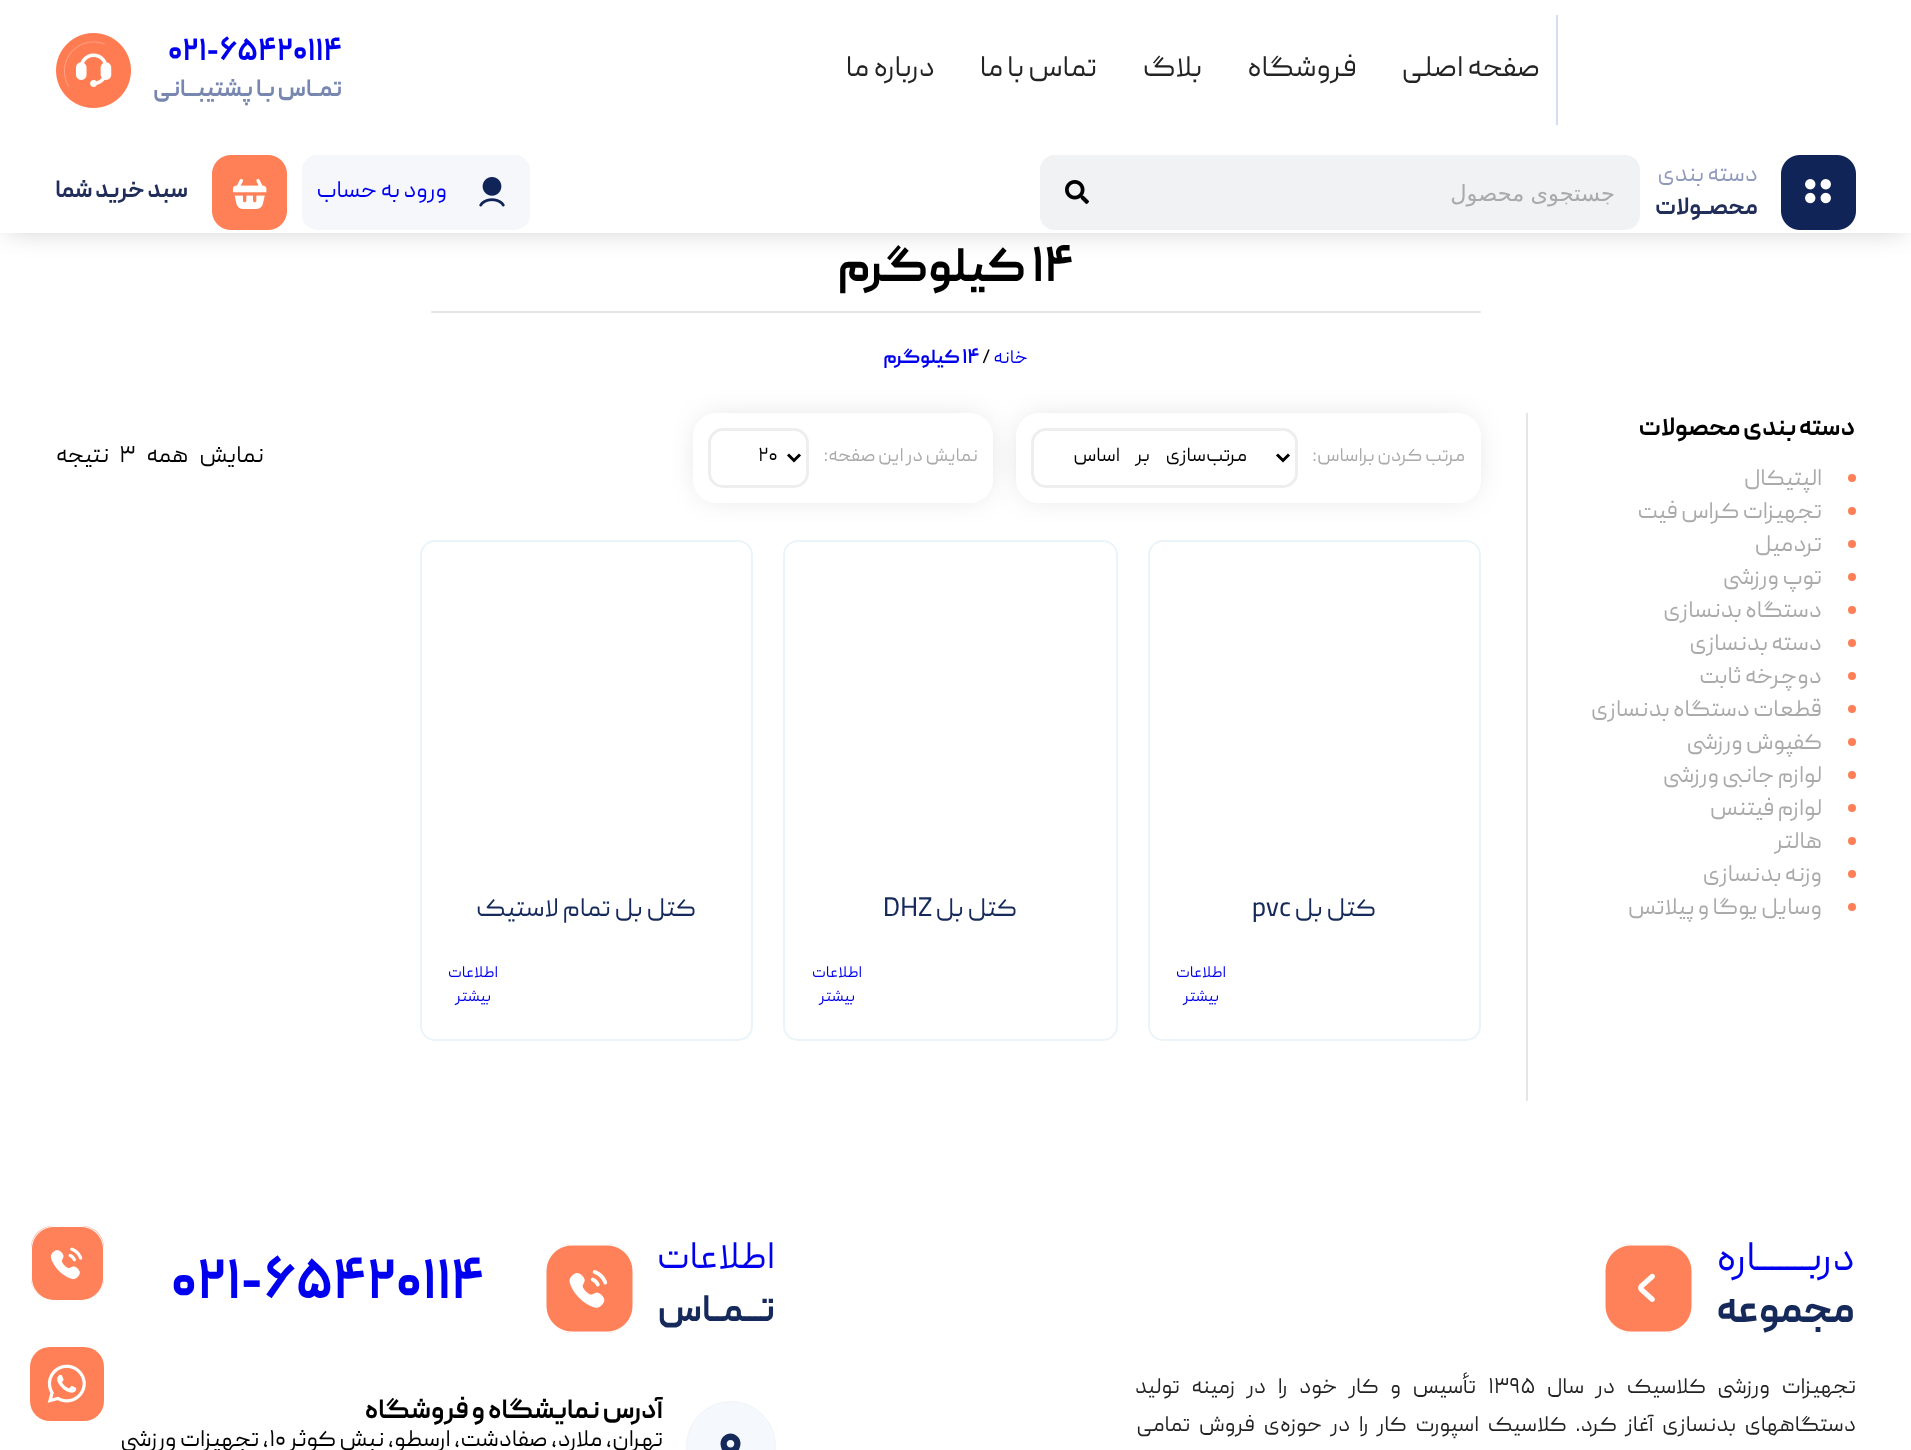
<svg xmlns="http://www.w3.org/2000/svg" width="1911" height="1450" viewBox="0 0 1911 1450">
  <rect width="100%" height="100%" fill="rgb(255,255,255)"/>
  <rect x="8" y="8" width="1896" height="217" fill="rgba(0,0,0,0.3)" filter="blur(15px)"/>
  <rect x="0" y="0" width="1911" height="233" fill="rgb(255,255,255)"/>
  <rect x="1556" y="15" width="2" height="110" fill="rgb(213,221,242)"/>
  <g font-family="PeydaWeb" font-size="30" direction="rtl" fill="rgb(35,35,35)">
    <text x="1540" y="76">صفحه اصلی</text>
    <text x="1357" y="76">فروشگاه</text>
    <text x="1202" y="76">بلاگ</text>
    <text x="1097" y="76">تماس با ما</text>
    <text x="935" y="76">درباره ما</text>
  </g>
  <text x="168" y="60" font-family="PeydaWeb" font-size="30" font-weight="bold" fill="rgb(0,0,238)">021-65420114</text>
  <text x="342" y="96" font-family="PeydaWeb" font-size="24" font-weight="bold" direction="rtl" fill="rgb(119,135,176)">تمــاس بـا پشتیبـــانی</text>
  <image x="56" y="33" width="75" height="75" href="pic1.png"/>
  <image x="1781" y="155" width="75" height="75" href="pic2.png"/>
  <text x="1758" y="181" font-family="PeydaWeb" font-size="24" direction="rtl" fill="rgb(143,154,189)">دسته بندی</text>
  <text x="1758" y="214" font-family="PeydaWeb" font-size="24" font-weight="bold" direction="rtl" fill="rgb(34,46,90)">محصــولات</text>
  <rect x="1040" y="155" width="600" height="75" rx="15" fill="rgb(241,242,243)"/>
  <text x="1615" y="201" word-spacing="-1" font-family="DejaVu Sans" font-size="22.5" direction="rtl" fill="rgb(170,170,170)">جستجوی محصول</text>
  <path d="M1055 155H1115V230H1055C1046.5 230 1040 223.5 1040 215V170C1040 161.5 1046.5 155 1055 155Z" fill="rgb(241,242,243)"/>
  <image x="1065" y="180" width="24" height="24" href="pic3.png"/>
  <rect x="302" y="155" width="228" height="75" rx="15" fill="rgb(245,247,251)"/>
  <image x="479" y="177" width="26" height="30" href="pic4.png"/>
  <text x="447" y="197" font-family="PeydaWeb" font-size="24" direction="rtl" fill="rgb(0,0,238)">ورود به حساب</text>
  <image x="212" y="155" width="75" height="75" href="pic5.png"/>
  <text x="188" y="197" font-family="PeydaWeb" font-size="24" font-weight="bold" direction="rtl" fill="rgb(34,46,90)">سبد خرید شما</text>
  <text x="1031" y="281" font-family="PeydaWeb" font-size="48" font-weight="bold" fill="rgb(0,0,0)">14</text>
  <text x="1026" y="281" font-family="PeydaWeb" font-size="48" font-weight="bold" direction="rtl" fill="rgb(0,0,0)">کیلوگرم</text>
  <rect x="431" y="311" width="1050" height="2" rx="1" fill="rgb(229,229,229)"/>
  <text x="1028" y="363" font-family="PeydaWeb" font-size="19.5" direction="rtl" fill="rgb(0,0,238)">خانه</text>
  <text x="982" y="363" font-family="PeydaWeb" font-size="19.5" fill="rgb(0,0,0)">/</text>
  <text x="962" y="363" font-family="PeydaWeb" font-size="19.5" font-weight="bold" fill="rgb(0,0,238)">14</text>
  <text x="960" y="363" font-family="PeydaWeb" font-size="19.5" font-weight="bold" direction="rtl" fill="rgb(0,0,238)">کیلوگرم</text>
  <rect x="1526" y="413" width="2" height="688" fill="rgb(229,229,229)"/>
  <text x="1855" y="435" font-family="PeydaWeb" font-size="25.5" font-weight="bold" direction="rtl" fill="rgb(0,0,0)">دسته بندی محصولات</text>
  <circle cx="1852" cy="478" r="4" fill="rgb(255,128,87)"/>
  <text x="1822" y="485" font-family="PeydaWeb" font-size="24" direction="rtl" fill="rgb(170,170,170)">الپتیکال</text>
  <circle cx="1852" cy="511" r="4" fill="rgb(255,128,87)"/>
  <text x="1822" y="518" font-family="PeydaWeb" font-size="24" direction="rtl" fill="rgb(170,170,170)">تجهیزات کراس فیت</text>
  <circle cx="1852" cy="544" r="4" fill="rgb(255,128,87)"/>
  <text x="1822" y="551" font-family="PeydaWeb" font-size="24" direction="rtl" fill="rgb(170,170,170)">تردمیل</text>
  <circle cx="1852" cy="577" r="4" fill="rgb(255,128,87)"/>
  <text x="1822" y="584" font-family="PeydaWeb" font-size="24" direction="rtl" fill="rgb(170,170,170)">توپ ورزشی</text>
  <circle cx="1852" cy="610" r="4" fill="rgb(255,128,87)"/>
  <text x="1822" y="617" font-family="PeydaWeb" font-size="24" direction="rtl" fill="rgb(170,170,170)">دستگاه بدنسازی</text>
  <circle cx="1852" cy="643" r="4" fill="rgb(255,128,87)"/>
  <text x="1822" y="650" font-family="PeydaWeb" font-size="24" direction="rtl" fill="rgb(170,170,170)">دسته بدنسازی</text>
  <circle cx="1852" cy="676" r="4" fill="rgb(255,128,87)"/>
  <text x="1822" y="683" font-family="PeydaWeb" font-size="24" direction="rtl" fill="rgb(170,170,170)">دوچرخه ثابت</text>
  <circle cx="1852" cy="709" r="4" fill="rgb(255,128,87)"/>
  <text x="1822" y="716" font-family="PeydaWeb" font-size="24" direction="rtl" fill="rgb(170,170,170)">قطعات دستگاه بدنسازی</text>
  <circle cx="1852" cy="742" r="4" fill="rgb(255,128,87)"/>
  <text x="1822" y="749" font-family="PeydaWeb" font-size="24" direction="rtl" fill="rgb(170,170,170)">کفپوش ورزشی</text>
  <circle cx="1852" cy="775" r="4" fill="rgb(255,128,87)"/>
  <text x="1822" y="782" font-family="PeydaWeb" font-size="24" direction="rtl" fill="rgb(170,170,170)">لوازم جانبی ورزشی</text>
  <circle cx="1852" cy="808" r="4" fill="rgb(255,128,87)"/>
  <text x="1822" y="815" font-family="PeydaWeb" font-size="24" direction="rtl" fill="rgb(170,170,170)">لوازم فیتنس</text>
  <circle cx="1852" cy="841" r="4" fill="rgb(255,128,87)"/>
  <text x="1822" y="848" font-family="PeydaWeb" font-size="24" direction="rtl" fill="rgb(170,170,170)">هالتر</text>
  <circle cx="1852" cy="874" r="4" fill="rgb(255,128,87)"/>
  <text x="1822" y="881" font-family="PeydaWeb" font-size="24" direction="rtl" fill="rgb(170,170,170)">وزنه بدنسازی</text>
  <circle cx="1852" cy="907" r="4" fill="rgb(255,128,87)"/>
  <text x="1822" y="914" font-family="PeydaWeb" font-size="24" direction="rtl" fill="rgb(170,170,170)">وسایل یوگا و پیلاتس</text>
  <rect x="701" y="420" width="285" height="75" rx="15" fill="rgba(0,0,0,0.15)" filter="blur(15px)"/>
  <rect x="693" y="413" width="300" height="90" rx="23" fill="rgb(255,255,255)"/>
  <rect x="1023" y="420" width="450" height="75" rx="15" fill="rgba(0,0,0,0.15)" filter="blur(15px)"/>
  <rect x="1016" y="413" width="465" height="90" rx="23" fill="rgb(255,255,255)"/>
  <text x="1465" y="461" font-family="PeydaWeb" font-size="19.5" direction="rtl" fill="rgb(170,170,170)">مرتب کردن براساس:</text>
  <rect x="1032.5" y="429.5" width="264" height="57" rx="13.5" fill="none" stroke="rgb(238,238,238)" stroke-width="3"/>
  <path d="M1277 454.5L1283 460.5L1289 454.5" fill="none" stroke="rgb(0,0,0)" stroke-width="3"/>
  <text x="1247" y="461" word-spacing="13" font-family="PeydaWeb" font-size="20" direction="rtl" fill="rgb(0,0,0)">مرتب‌سازی بر اساس</text>
  <text x="978" y="461" font-family="PeydaWeb" font-size="19.5" direction="rtl" fill="rgb(170,170,170)">نمایش در این صفحه:</text>
  <rect x="709.5" y="429.5" width="98" height="57" rx="13.5" fill="none" stroke="rgb(238,238,238)" stroke-width="3"/>
  <path d="M788 454.5L794 460.5L800 454.5" fill="none" stroke="rgb(0,0,0)" stroke-width="3"/>
  <text x="758" y="461" font-family="PeydaWeb" font-size="20" fill="rgb(0,0,0)">20</text>
  <text x="264" y="462" word-spacing="8" font-family="PeydaWeb" font-size="24" direction="rtl" fill="rgb(0,0,0)">نمایش همه</text>
  <text x="119" y="462" font-family="PeydaWeb" font-size="24" fill="rgb(0,0,0)">3</text>
  <text x="109" y="462" font-family="PeydaWeb" font-size="24" direction="rtl" fill="rgb(0,0,0)">نتیجه</text>
  <rect x="1149" y="541" width="331" height="499" rx="14" fill="none" stroke="rgb(235,244,249)" stroke-width="2"/>
  <text x="1376" y="916" font-family="PeydaWeb" font-size="27" direction="rtl" fill="rgb(22,41,91)">کتل بل</text>
  <text x="1252" y="916" font-family="PeydaWeb" font-size="27" fill="rgb(22,41,91)">pvc</text>
  <g font-family="PeydaWeb" font-size="16.5" direction="rtl" fill="rgb(0,0,238)">
    <text x="1226" y="977">اطلاعات</text>
    <text x="1219" y="1001">بیشتر</text>
  </g>
  <rect x="784" y="541" width="333" height="499" rx="14" fill="none" stroke="rgb(235,244,249)" stroke-width="2"/>
  <text x="1017" y="916" font-family="PeydaWeb" font-size="27" direction="rtl" fill="rgb(22,41,91)">کتل بل</text>
  <text x="883" y="916" font-family="PeydaWeb" font-size="27" fill="rgb(22,41,91)">DHZ</text>
  <g font-family="PeydaWeb" font-size="16.5" direction="rtl" fill="rgb(0,0,238)">
    <text x="862" y="977">اطلاعات</text>
    <text x="855" y="1001">بیشتر</text>
  </g>
  <rect x="421" y="541" width="331" height="499" rx="14" fill="none" stroke="rgb(235,244,249)" stroke-width="2"/>
  <text x="696" y="916" font-family="PeydaWeb" font-size="27" direction="rtl" fill="rgb(22,41,91)">کتل بل تمام لاستیک</text>
  <g font-family="PeydaWeb" font-size="16.5" direction="rtl" fill="rgb(0,0,238)">
    <text x="498" y="977">اطلاعات</text>
    <text x="491" y="1001">بیشتر</text>
  </g>
  <text x="1855" y="1270" font-family="PeydaWeb" font-size="42" direction="rtl" fill="rgb(0,0,238)">دربـــــــاره</text>
  <text x="1855" y="1322" font-family="PeydaWeb" font-size="42" font-weight="bold" direction="rtl" fill="rgb(22,41,91)">مجموعه</text>
  <image x="1605" y="1244" width="87" height="89" href="pic6.png"/>
  <text x="1856" y="1393" word-spacing="8.5" font-family="PeydaWeb" font-size="22.5" direction="rtl" fill="rgb(35,35,35)">تجهیزات ورزشی کلاسیک در سال</text>
  <text x="1488" y="1393" font-family="PeydaWeb" font-size="22.5" fill="rgb(35,35,35)">۱۳۹۵</text>
  <g font-family="PeydaWeb" font-size="22.5" direction="rtl" fill="rgb(35,35,35)">
    <text x="1476" y="1393" word-spacing="8.5">تأسیس و کار خود را در زمینه تولید</text>
    <text x="1856" y="1431" word-spacing="5.5">دستگاههای بدنسازی آغاز کرد. کلاسیک اسپورت کار را در حوزه‌ی فروش تمامی</text>
  </g>
  <text x="775" y="1268" font-family="PeydaWeb" font-size="39" direction="rtl" fill="rgb(0,0,238)">اطلاعات</text>
  <text x="775" y="1321" font-family="PeydaWeb" font-size="37.5" font-weight="bold" direction="rtl" fill="rgb(22,41,91)">تـــمــاس</text>
  <image x="546" y="1244" width="87" height="89" href="pic7.png"/>
  <text x="171" y="1298" font-family="PeydaWeb" font-size="54" font-weight="bold" fill="rgb(0,0,238)">021-65420114</text>
  <circle cx="731" cy="1446" r="44.5" fill="rgb(245,248,252)" stroke="rgb(239,244,250)"/>
  <path d="M730.5 1433.5C728 1433.5 725.5 1434.5 723.5 1436.5C721.5 1438.5 720.5 1441 720.5 1443.5C720.5 1445 721 1447 721.5 1448.5C722.5 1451 726.5 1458.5 730.5 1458.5C735.5 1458 740.5 1448 740.5 1443.5C740.5 1441 739.5 1438.5 737.5 1436.5C735.5 1434.5 733 1433.5 730.5 1433.5ZM730.5 1440C735.5 1440 735.5 1447.5 730.5 1447.5C725.5 1447.5 725.5 1440 730.5 1440Z" fill="rgb(22,41,91)"/>
  <text x="663" y="1418" font-family="PeydaWeb" font-size="27" font-weight="bold" direction="rtl" fill="rgb(0,0,0)">آدرس نمایشگاه و فروشگاه</text>
  <text x="663" y="1446" font-family="PeydaWeb" font-size="24" direction="rtl" fill="rgb(0,0,0)">تهران، ملارد، صفادشت، ارسطو، نبش کوثر</text>
  <text x="269" y="1446" font-family="PeydaWeb" font-size="24" fill="rgb(0,0,0)">10</text>
  <text x="269" y="1446" font-family="PeydaWeb" font-size="24" direction="rtl" fill="rgb(0,0,0)">، تجهیزات ورزشی</text>
  <image x="31" y="1226" width="73" height="74" href="pic8.png"/>
  <rect x="30" y="1347" width="74" height="74" rx="20" fill="rgb(255,128,87)"/>
  <image x="47" y="1364" width="39" height="39" href="pic9.png"/>
</svg>
